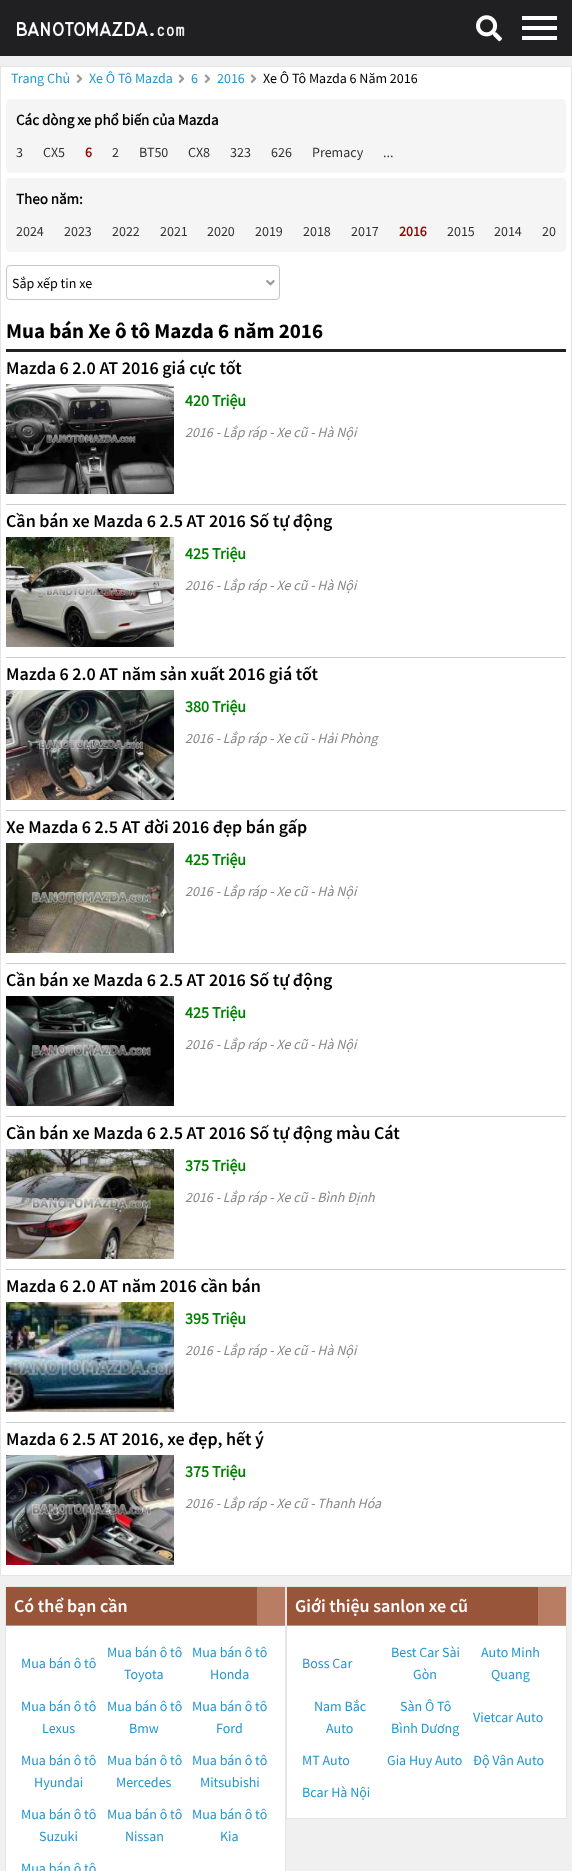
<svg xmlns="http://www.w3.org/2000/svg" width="572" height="1871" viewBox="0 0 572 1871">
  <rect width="100%" height="100%" fill="rgb(240,240,240)"/>
  <rect x="0" y="0" width="572" height="56" fill="rgb(32,32,34)"/>
  <image x="17" y="22" width="168" height="14" href="pic1.png"/>
  <image x="476" y="15" width="26" height="27" href="pic2.png"/>
  <rect x="522" y="16" width="35" height="4" fill="rgb(255,255,255)"/>
  <rect x="522" y="26" width="35" height="4" fill="rgb(255,255,255)"/>
  <rect x="522" y="36" width="35" height="4" fill="rgb(255,255,255)"/>
  <rect x="0.5" y="66.5" width="571" height="1509" fill="rgb(255,255,255)" stroke="rgb(229,229,229)"/>
  <text x="11" y="83" font-family="Source Sans Pro" font-size="14" fill="rgb(37,150,207)">Trang Chủ</text>
  <image x="76" y="74" width="7" height="9" href="pic3.png"/>
  <text x="89" y="83" font-family="Source Sans Pro" font-size="14" fill="rgb(37,150,207)">Xe Ô Tô Mazda</text>
  <image x="178" y="74" width="7" height="9" href="pic3.png"/>
  <text x="191" y="83" font-family="Source Sans Pro" font-size="14" fill="rgb(37,150,207)">6</text>
  <image x="204" y="74" width="7" height="9" href="pic3.png"/>
  <text x="217" y="83" font-family="Source Sans Pro" font-size="14" fill="rgb(37,150,207)">2016</text>
  <image x="250" y="74" width="7" height="9" href="pic3.png"/>
  <text x="263" y="83" font-family="Source Sans Pro" font-size="14" fill="rgb(0,0,0)">Xe Ô Tô Mazda 6 Năm 2016</text>
  <rect x="6" y="99" width="560" height="74" rx="4" fill="rgb(245,245,245)"/>
  <text x="16" y="125" font-family="'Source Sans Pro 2'" font-size="15" font-weight="bold" fill="rgb(0,0,0)">Các dòng xe phổ biến của Mazda</text>
  <g font-family="Source Sans Pro" font-size="14" fill="rgb(51,51,51)">
    <text x="16" y="157">3</text>
    <text x="43" y="157">CX5</text>
  </g>
  <text x="85" y="157" font-family="'Source Sans Pro 2'" font-size="14" font-weight="bold" fill="rgb(153,0,0)">6</text>
  <g font-family="Source Sans Pro" font-size="14" fill="rgb(51,51,51)">
    <text x="112" y="157">2</text>
    <text x="139" y="157">BT50</text>
    <text x="188" y="157">CX8</text>
    <text x="230" y="157">323</text>
    <text x="271" y="157">626</text>
    <text x="312" y="157">Premacy</text>
    <text x="383" y="157">...</text>
  </g>
  <rect x="6" y="178" width="560" height="74" rx="4" fill="rgb(245,245,245)"/>
  <text x="16" y="204" font-family="'Source Sans Pro 2'" font-size="15" font-weight="bold" fill="rgb(0,0,0)">Theo năm:</text>
  <g font-family="Source Sans Pro" font-size="14" fill="rgb(51,51,51)">
    <text x="16" y="236">2024</text>
    <text x="64" y="236">2023</text>
    <text x="112" y="236">2022</text>
    <text x="160" y="236">2021</text>
    <text x="207" y="236">2020</text>
    <text x="255" y="236">2019</text>
    <text x="303" y="236">2018</text>
    <text x="351" y="236">2017</text>
  </g>
  <text x="399" y="236" font-family="'Source Sans Pro 2'" font-size="14" font-weight="bold" fill="rgb(153,0,0)">2016</text>
  <g font-family="Source Sans Pro" font-size="14" fill="rgb(51,51,51)">
    <text x="447" y="236">2015</text>
    <text x="494" y="236">2014</text>
    <text x="542" y="236">20</text>
  </g>
  <rect x="6.5" y="265.5" width="273" height="34" rx="3.5" fill="none" stroke="rgb(199,197,197)"/>
  <text x="12" y="288" font-family="Source Sans Pro" font-size="14" fill="rgb(0,0,0)">Sắp xếp tin xe</text>
  <image x="266" y="280" width="9" height="6" href="pic4.png"/>
  <text x="6" y="338" font-family="Source Sans Pro" font-size="21" font-weight="bold" fill="rgb(0,0,0)">Mua bán Xe ô tô Mazda 6 năm 2016</text>
  <rect x="6" y="349" width="560" height="3" fill="rgb(32,32,34)"/>
  <text x="6" y="374" font-family="Source Sans Pro" font-size="18" font-weight="600" fill="rgb(0,0,0)">Mazda 6 2.0 AT 2016 giá cực tốt</text>
  <rect x="6" y="504" width="560" height="1" fill="rgb(204,204,204)"/>
  <image x="6" y="384" width="168" height="110" href="pic5.png"/>
  <text x="185" y="406" font-family="'Source Sans Pro 2'" font-size="16" font-weight="bold" fill="rgb(0,128,0)">420 Triệu</text>
  <text x="185" y="437" font-family="Source Sans Pro" font-size="14" font-style="italic" fill="rgb(136,136,136)">2016 - Lắp ráp - Xe cũ - Hà Nội</text>
  <text x="6" y="527" font-family="Source Sans Pro" font-size="18" font-weight="600" fill="rgb(0,0,0)">Cần bán xe Mazda 6 2.5 AT 2016 Số tự động</text>
  <rect x="6" y="657" width="560" height="1" fill="rgb(204,204,204)"/>
  <image x="6" y="537" width="168" height="110" href="pic6.png"/>
  <text x="185" y="559" font-family="'Source Sans Pro 2'" font-size="16" font-weight="bold" fill="rgb(0,128,0)">425 Triệu</text>
  <text x="185" y="590" font-family="Source Sans Pro" font-size="14" font-style="italic" fill="rgb(136,136,136)">2016 - Lắp ráp - Xe cũ - Hà Nội</text>
  <text x="6" y="680" font-family="Source Sans Pro" font-size="18" font-weight="600" fill="rgb(0,0,0)">Mazda 6 2.0 AT năm sản xuất 2016 giá tốt</text>
  <rect x="6" y="810" width="560" height="1" fill="rgb(204,204,204)"/>
  <image x="6" y="690" width="168" height="110" href="pic7.png"/>
  <text x="185" y="712" font-family="'Source Sans Pro 2'" font-size="16" font-weight="bold" fill="rgb(0,128,0)">380 Triệu</text>
  <text x="185" y="743" font-family="Source Sans Pro" font-size="14" font-style="italic" fill="rgb(136,136,136)">2016 - Lắp ráp - Xe cũ - Hải Phòng</text>
  <text x="6" y="833" font-family="Source Sans Pro" font-size="18" font-weight="600" fill="rgb(0,0,0)">Xe Mazda 6 2.5 AT đời 2016 đẹp bán gấp</text>
  <rect x="6" y="963" width="560" height="1" fill="rgb(204,204,204)"/>
  <image x="6" y="843" width="168" height="110" href="pic8.png"/>
  <text x="185" y="865" font-family="'Source Sans Pro 2'" font-size="16" font-weight="bold" fill="rgb(0,128,0)">425 Triệu</text>
  <text x="185" y="896" font-family="Source Sans Pro" font-size="14" font-style="italic" fill="rgb(136,136,136)">2016 - Lắp ráp - Xe cũ - Hà Nội</text>
  <text x="6" y="986" font-family="Source Sans Pro" font-size="18" font-weight="600" fill="rgb(0,0,0)">Cần bán xe Mazda 6 2.5 AT 2016 Số tự động</text>
  <rect x="6" y="1116" width="560" height="1" fill="rgb(204,204,204)"/>
  <image x="6" y="996" width="168" height="110" href="pic9.png"/>
  <text x="185" y="1018" font-family="'Source Sans Pro 2'" font-size="16" font-weight="bold" fill="rgb(0,128,0)">425 Triệu</text>
  <text x="185" y="1049" font-family="Source Sans Pro" font-size="14" font-style="italic" fill="rgb(136,136,136)">2016 - Lắp ráp - Xe cũ - Hà Nội</text>
  <text x="6" y="1139" font-family="Source Sans Pro" font-size="18" font-weight="600" fill="rgb(0,0,0)">Cần bán xe Mazda 6 2.5 AT 2016 Số tự động màu Cát</text>
  <rect x="6" y="1269" width="560" height="1" fill="rgb(204,204,204)"/>
  <image x="6" y="1149" width="168" height="110" href="pic10.png"/>
  <text x="185" y="1171" font-family="'Source Sans Pro 2'" font-size="16" font-weight="bold" fill="rgb(0,128,0)">375 Triệu</text>
  <text x="185" y="1202" font-family="Source Sans Pro" font-size="14" font-style="italic" fill="rgb(136,136,136)">2016 - Lắp ráp - Xe cũ - Bình Định</text>
  <text x="6" y="1292" font-family="Source Sans Pro" font-size="18" font-weight="600" fill="rgb(0,0,0)">Mazda 6 2.0 AT năm 2016 cần bán</text>
  <rect x="6" y="1422" width="560" height="1" fill="rgb(204,204,204)"/>
  <image x="6" y="1302" width="168" height="110" href="pic11.png"/>
  <text x="185" y="1324" font-family="'Source Sans Pro 2'" font-size="16" font-weight="bold" fill="rgb(0,128,0)">395 Triệu</text>
  <text x="185" y="1355" font-family="Source Sans Pro" font-size="14" font-style="italic" fill="rgb(136,136,136)">2016 - Lắp ráp - Xe cũ - Hà Nội</text>
  <text x="6" y="1445" font-family="Source Sans Pro" font-size="18" font-weight="600" fill="rgb(0,0,0)">Mazda 6 2.5 AT 2016, xe đẹp, hết ý</text>
  <image x="6" y="1455" width="168" height="110" href="pic12.png"/>
  <text x="185" y="1477" font-family="'Source Sans Pro 2'" font-size="16" font-weight="bold" fill="rgb(0,128,0)">375 Triệu</text>
  <text x="185" y="1508" font-family="Source Sans Pro" font-size="14" font-style="italic" fill="rgb(136,136,136)">2016 - Lắp ráp - Xe cũ - Thanh Hóa</text>
  <rect x="6" y="1626" width="279" height="245" fill="rgb(255,255,255)"/>
  <rect x="5.5" y="1586.5" width="280" height="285" fill="none" stroke="rgb(229,229,229)"/>
  <rect x="6" y="1587" width="251" height="38" fill="rgb(153,85,58)"/>
  <rect x="6" y="1625" width="279" height="1" fill="rgb(161,158,155)"/>
  <text x="14" y="1612" font-family="Source Sans Pro" font-size="18" font-weight="600" fill="rgb(255,255,255)">Có thể bạn cần</text>
  <rect x="257" y="1587" width="28" height="38" fill="rgb(184,125,98)"/>
  <g font-family="Source Sans Pro" font-size="14" fill="rgb(37,150,207)">
    <text x="21" y="1668">Mua bán ô tô</text>
    <text x="107" y="1657">Mua bán ô tô</text>
    <text x="124" y="1679">Toyota</text>
    <text x="192" y="1657">Mua bán ô tô</text>
    <text x="210" y="1679">Honda</text>
    <text x="21" y="1711">Mua bán ô tô</text>
    <text x="42" y="1733">Lexus</text>
    <text x="107" y="1711">Mua bán ô tô</text>
    <text x="129" y="1733">Bmw</text>
    <text x="192" y="1711">Mua bán ô tô</text>
    <text x="216" y="1733">Ford</text>
    <text x="21" y="1765">Mua bán ô tô</text>
    <text x="34" y="1787">Hyundai</text>
    <text x="107" y="1765">Mua bán ô tô</text>
    <text x="116" y="1787">Mercedes</text>
    <text x="192" y="1765">Mua bán ô tô</text>
    <text x="200" y="1787">Mitsubishi</text>
    <text x="21" y="1819">Mua bán ô tô</text>
    <text x="39" y="1841">Suzuki</text>
    <text x="107" y="1819">Mua bán ô tô</text>
    <text x="125" y="1841">Nissan</text>
    <text x="192" y="1819">Mua bán ô tô</text>
    <text x="220" y="1841">Kia</text>
    <text x="21" y="1873">Mua bán ô tô</text>
  </g>
  <rect x="287" y="1626" width="279" height="192" fill="rgb(255,255,255)"/>
  <rect x="286.5" y="1586.5" width="280" height="232" fill="none" stroke="rgb(229,229,229)"/>
  <rect x="287" y="1587" width="251" height="38" fill="rgb(153,85,58)"/>
  <rect x="287" y="1625" width="279" height="1" fill="rgb(161,158,155)"/>
  <text x="295" y="1612" font-family="Source Sans Pro" font-size="18" font-weight="600" fill="rgb(255,255,255)">Giới thiệu sanlon xe cũ</text>
  <rect x="538" y="1587" width="28" height="38" fill="rgb(184,125,98)"/>
  <g font-family="Source Sans Pro" font-size="14" fill="rgb(37,150,207)">
    <text x="302" y="1668">Boss Car</text>
    <text x="391" y="1657">Best Car Sài</text>
    <text x="413" y="1679">Gòn</text>
    <text x="481" y="1657">Auto Minh</text>
    <text x="491" y="1679">Quang</text>
    <text x="314" y="1711">Nam Bắc</text>
    <text x="326" y="1733">Auto</text>
    <text x="400" y="1711">Sàn Ô Tô</text>
    <text x="391" y="1733">Bình Dương</text>
    <text x="473" y="1722">Vietcar Auto</text>
    <text x="302" y="1765">MT Auto</text>
    <text x="387" y="1765">Gia Huy Auto</text>
    <text x="473" y="1765">Độ Vân Auto</text>
    <text x="302" y="1797">Bcar Hà Nội</text>
  </g>
</svg>
